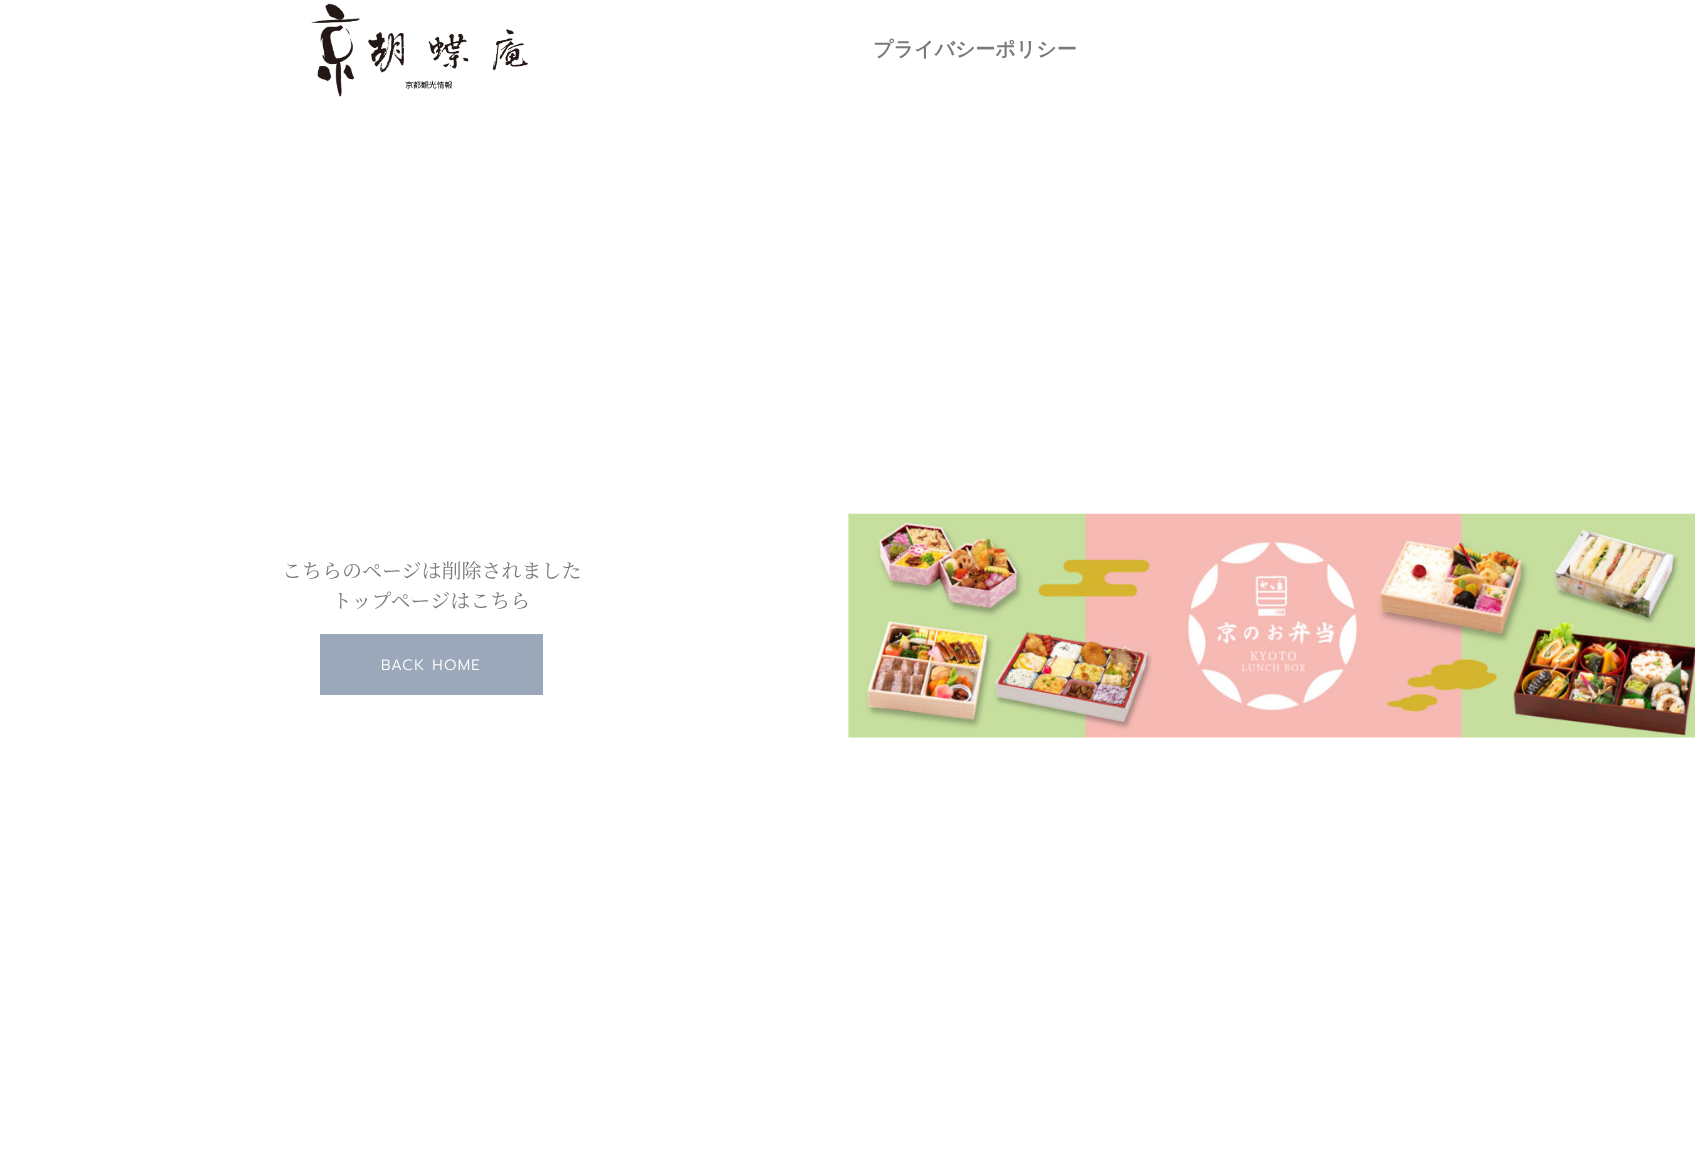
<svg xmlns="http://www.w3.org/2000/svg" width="1695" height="1167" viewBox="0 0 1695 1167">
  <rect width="100%" height="100%" fill="rgb(255,255,255)"/>
  <image x="311" y="3" width="217" height="94" href="pic1.png"/>
  <text x="873" y="56" font-family="WenQuanYi Zen Hei" font-size="20" font-weight="bold" fill="rgb(122,122,122)">プライバシーポリシー</text>
  <g font-family="Noto Serif JP" font-size="20" fill="rgb(122,122,122)">
    <text x="282" y="578">こちらのページは削除されました</text>
    <text x="332" y="608">トップページはこちら</text>
  </g>
  <rect x="320" y="634" width="223" height="61" fill="rgb(154,168,186)"/>
  <text x="381" y="670" font-family="Prompt" font-size="15" font-weight="300" letter-spacing="1.25" fill="rgb(255,255,255)">BACK HOME</text>
  <image x="847" y="513" width="848" height="225" href="pic2.png"/>
</svg>
